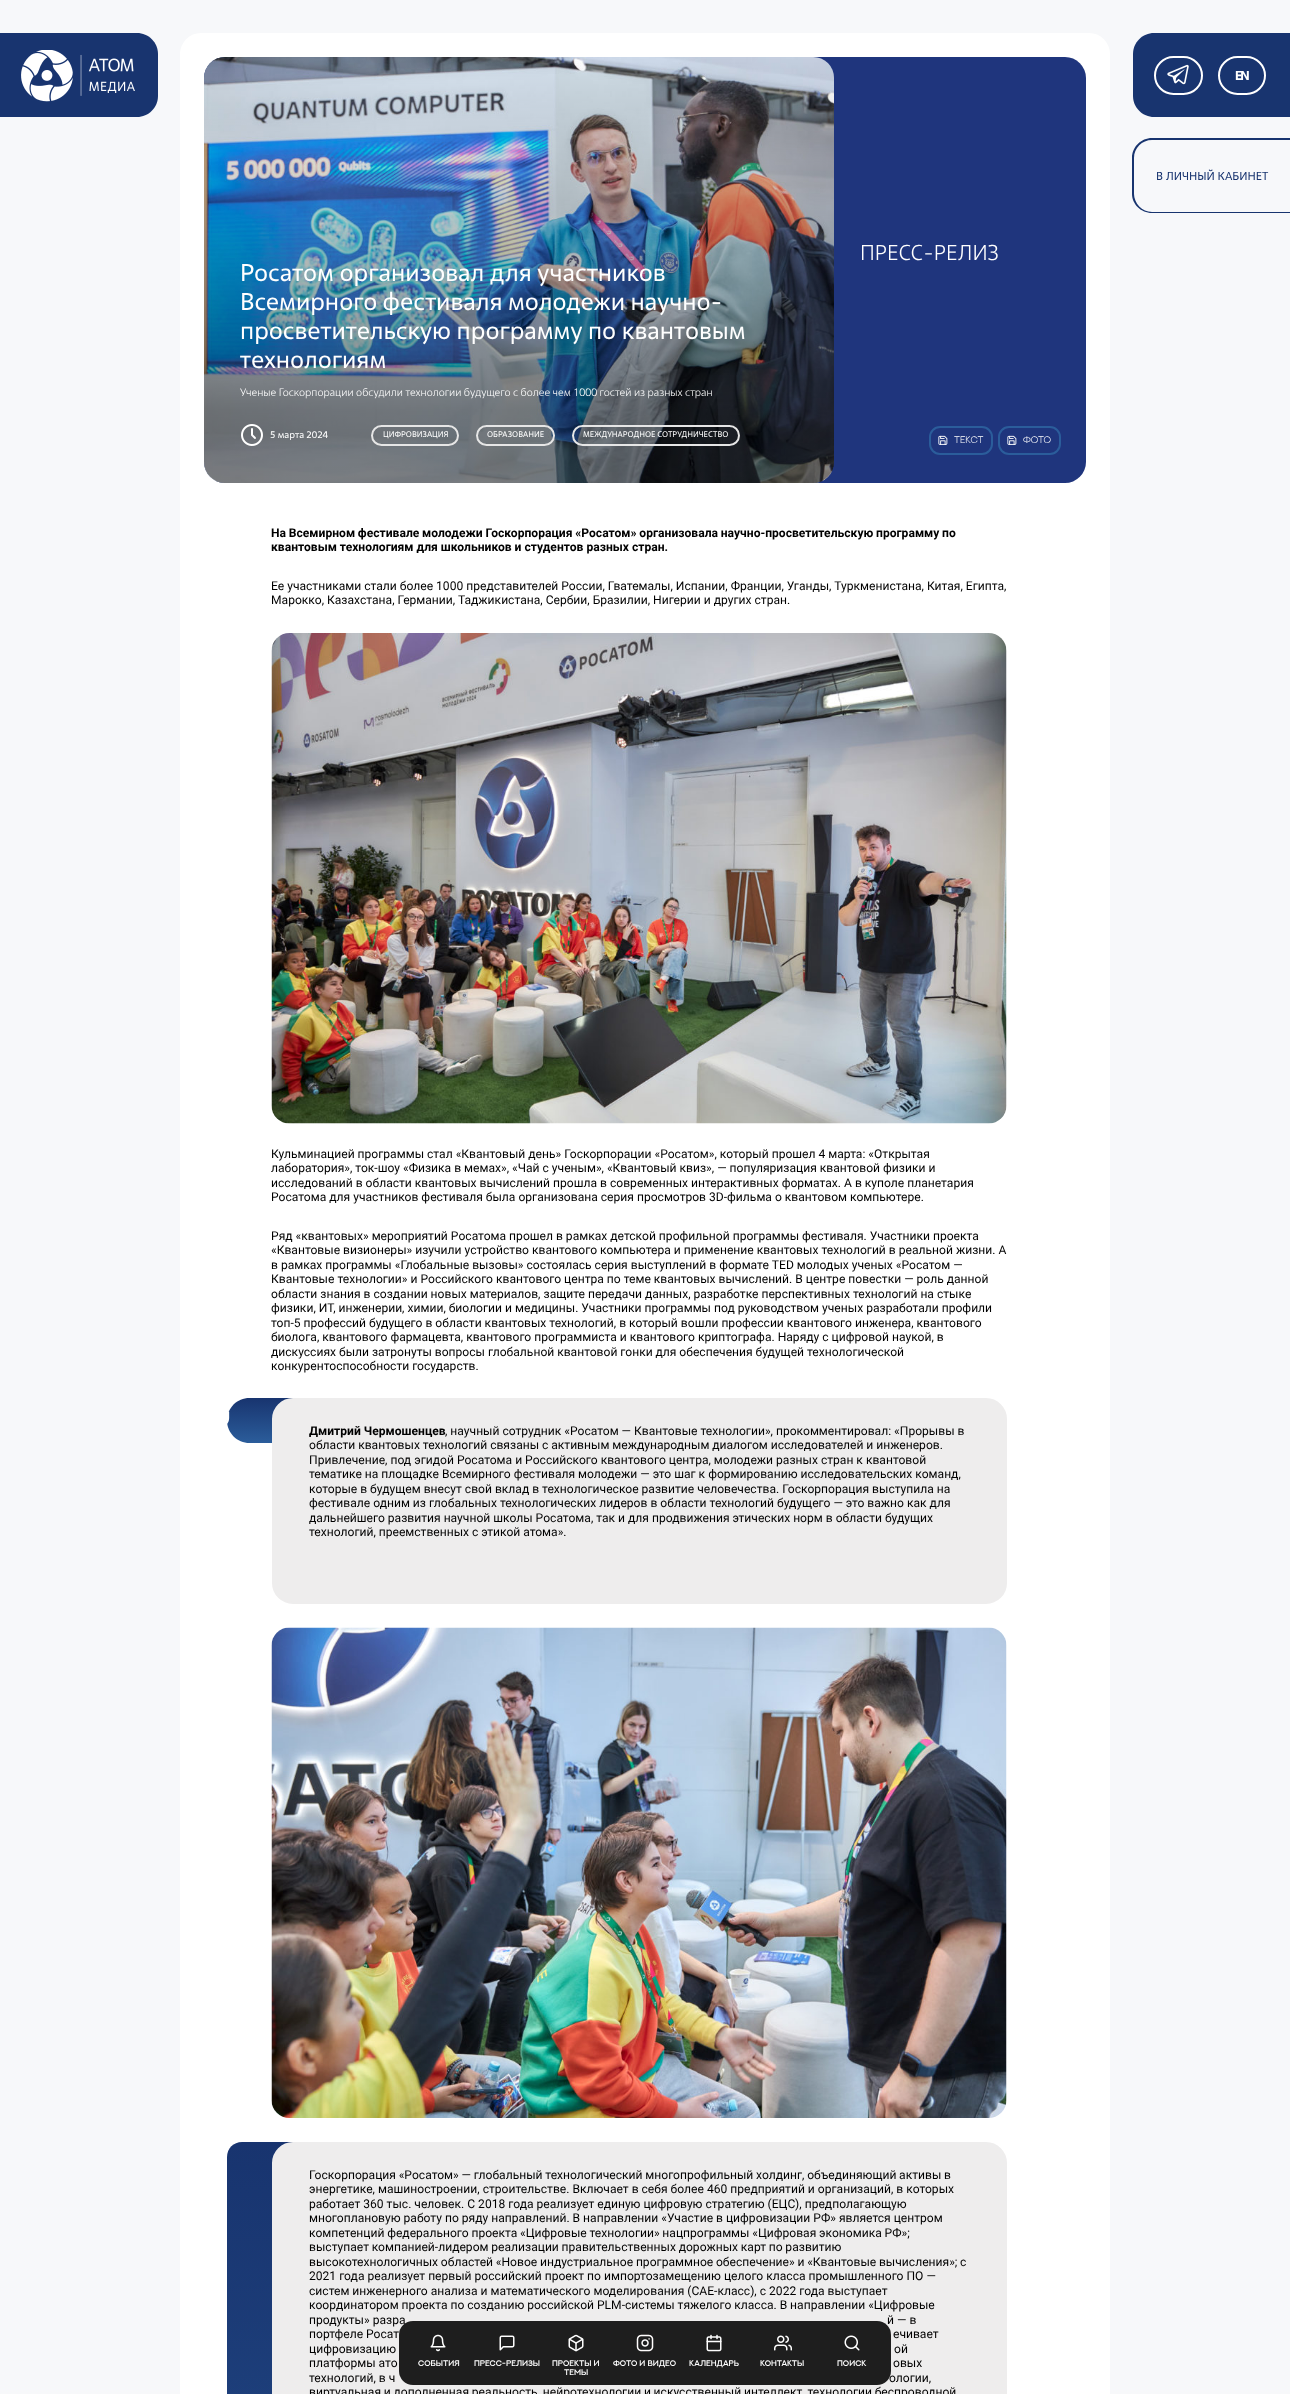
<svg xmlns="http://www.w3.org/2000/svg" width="1290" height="2394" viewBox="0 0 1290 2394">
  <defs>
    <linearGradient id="g1" gradientUnits="userSpaceOnUse" x1="519" y1="57" x2="519" y2="483"><stop offset="0" stop-color="rgb(0,0,0)" stop-opacity="0"/><stop offset="0.83" stop-color="rgb(0,0,0)" stop-opacity="0.48"/></linearGradient>
    <linearGradient id="g2" gradientUnits="userSpaceOnUse" x1="317" y1="1398" x2="317" y2="1443"><stop offset="0" stop-color="rgb(24,52,111)"/><stop offset="1" stop-color="rgb(43,93,155)"/></linearGradient>
    <linearGradient id="g3" gradientUnits="userSpaceOnUse" x1="339" y1="2142" x2="339" y2="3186"><stop offset="0" stop-color="rgb(24,52,111)"/><stop offset="1" stop-color="rgb(43,93,155)"/></linearGradient>
  </defs>
  <rect width="100%" height="100%" fill="rgb(247,248,250)"/>
  <path d="M0 33H137C148.5 33 158 42.5 158 54V96C158 107.5 148.5 117 137 117H0Z" fill="rgb(24,52,111)"/>
  <image x="21" y="50" width="114" height="52" href="pic1.png"/>
  <path d="M1154 33H1290V117H1154C1142.5 117 1133 107.5 1133 96V54C1133 42.5 1142.5 33 1154 33Z" fill="rgb(24,52,111)"/>
  <rect x="1155" y="57" width="47" height="37" rx="18.5" fill="none" stroke="rgb(255,255,255)" stroke-width="2"/>
  <image x="1167" y="64" width="22" height="21" href="pic2.png"/>
  <rect x="1219" y="57" width="46" height="37" rx="18.5" fill="none" stroke="rgb(255,255,255)" stroke-width="2"/>
  <text x="1235" y="80" font-family="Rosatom" font-size="13" font-weight="bold" letter-spacing="-2" fill="rgb(255,255,255)">EN</text>
  <path d="M1152 138H1290V213H1152C1141 213 1132 204 1132 194V158C1132 147 1141 138 1152 138ZM1152 140H1290V212H1152C1142 212 1134 203 1134 194V158C1134 148 1142 140 1152 140Z" fill="rgb(24,52,111)" fill-rule="evenodd"/>
  <text x="1156" y="180" font-family="Rosatom" font-size="11.6" fill="rgb(24,52,111)">В ЛИЧНЫЙ КАБИНЕТ</text>
  <rect x="180" y="33" width="930" height="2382" rx="21" fill="rgb(255,255,255)"/>
  <rect x="204" y="57" width="882" height="426" rx="21" fill="rgb(31,53,125)"/>
  <image x="204" y="57" width="630" height="426" href="pic3.png"/>
  <rect x="204" y="57" width="630" height="426" rx="21" fill="url(#g1)"/>
  <g font-family="Rosatom" font-size="24.2" fill="rgb(255,255,255)">
    <text>
      <tspan x="240" y="281">Росатом организовал для участников</tspan>
      <tspan x="240" y="310" word-spacing="-0.25">Всемирного фестиваля молодежи научно-</tspan>
      <tspan x="240" y="339">просветительскую программу по квантовым</tspan>
      <tspan x="240" y="368">технологиям</tspan>
    </text>
  </g>
  <text x="240" y="396" font-family="Rosatom" font-size="10.75" font-weight="300" fill="rgb(255,255,255)">Ученые Госкорпорации обсудили технологии будущего с более чем 1000 гостей из разных стран</text>
  <image x="241" y="424" width="22" height="22" href="pic4.png"/>
  <text x="270" y="438" font-family="Rosatom" font-size="9.5" fill="rgb(255,255,255)">5 марта 2024</text>
  <rect x="372" y="426" width="86" height="19" rx="9.5" fill="none" stroke="rgb(230,230,230)" stroke-width="2"/>
  <text x="383" y="437" font-family="Rosatom" font-size="8.1" fill="rgb(255,255,255)">ЦИФРОВИЗАЦИЯ</text>
  <rect x="477" y="426" width="77" height="19" rx="9.5" fill="none" stroke="rgb(230,230,230)" stroke-width="2"/>
  <text x="487" y="437" font-family="Rosatom" font-size="8.1" fill="rgb(255,255,255)">ОБРАЗОВАНИЕ</text>
  <rect x="573" y="426" width="166" height="19" rx="9.5" fill="none" stroke="rgb(230,230,230)" stroke-width="2"/>
  <text x="583" y="437" font-family="Rosatom" font-size="8.1" fill="rgb(255,255,255)">МЕЖДУНАРОДНОЕ СОТРУДНИЧЕСТВО</text>
  <text x="860" y="260" font-family="Rosatom" font-size="21.5" font-weight="300" fill="rgb(255,255,255)">ПРЕСС-РЕЛИЗ</text>
  <rect x="930" y="427" width="62" height="27" rx="10" fill="none" stroke="rgb(43,93,155)" stroke-width="2"/>
  <image x="938" y="435" width="10" height="10" href="pic5.png"/>
  <text x="954" y="443" font-family="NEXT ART" font-size="9.5" font-weight="300" fill="rgb(255,255,255)">ТЕКСТ</text>
  <rect x="999" y="427" width="61" height="27" rx="10" fill="none" stroke="rgb(43,93,155)" stroke-width="2"/>
  <image x="1007" y="435" width="10" height="10" href="pic5.png"/>
  <text x="1023" y="443" font-family="NEXT ART" font-size="9.5" font-weight="300" fill="rgb(255,255,255)">ФОТО</text>
  <g font-family="Roboto" font-size="12.1" font-weight="bold" fill="rgb(0,0,0)">
    <text>
      <tspan x="271" y="537" word-spacing="-0.25">На Всемирном фестивале молодежи Госкорпорация «Росатом» организовала научно-просветительскую программу по</tspan>
      <tspan x="271" y="551">квантовым технологиям для школьников и студентов разных стран.</tspan>
    </text>
  </g>
  <g font-family="Roboto" font-size="12.1" fill="rgb(0,0,0)">
    <text>
      <tspan x="271" y="590">Ее участниками стали более 1000 представителей России, Гватемалы, Испании, Франции, Уганды, Туркменистана, Китая, Египта,</tspan>
      <tspan x="271" y="604">Марокко, Казахстана, Германии, Таджикистана, Сербии, Бразилии, Нигерии и других стран.</tspan>
    </text>
  </g>
  <image x="271" y="633" width="736" height="491" href="pic6.png"/>
  <g font-family="Roboto" font-size="12.1" fill="rgb(0,0,0)">
    <text>
      <tspan x="271" y="1158">Кульминацией программы стал «Квантовый день» Госкорпорации «Росатом», который прошел 4 марта: «Открытая</tspan>
      <tspan x="271" y="1172">лаборатория», ток-шоу «Физика в мемах», «Чай с ученым», «Квантовый квиз», — популяризация квантовой физики и</tspan>
      <tspan x="271" y="1187">исследований в области квантовых вычислений прошла в современных интерактивных форматах. А в куполе планетария</tspan>
      <tspan x="271" y="1201">Росатома для участников фестиваля была организована серия просмотров 3D-фильма о квантовом компьютере.</tspan>
    </text>
    <text>
      <tspan x="271" y="1240">Ряд «квантовых» мероприятий Росатома прошел в рамках детской профильной программы фестиваля. Участники проекта</tspan>
      <tspan x="271" y="1254">«Квантовые визионеры» изучили устройство квантового компьютера и применение квантовых технологий в реальной жизни. А</tspan>
      <tspan x="271" y="1269">в рамках программы «Глобальные вызовы» состоялась серия выступлений в формате TED молодых ученых «Росатом —</tspan>
      <tspan x="271" y="1283">Квантовые технологии» и Российского квантового центра по теме квантовых вычислений. В центре повестки — роль данной</tspan>
      <tspan x="271" y="1298">области знания в создании новых материалов, защите передачи данных, разработке перспективных технологий на стыке</tspan>
      <tspan x="271" y="1312">физики, ИТ, инженерии, химии, биологии и медицины. Участники программы под руководством ученых разработали профили</tspan>
      <tspan x="271" y="1327">топ-5 профессий будущего в области квантовых технологий, в который вошли профессии квантового инженера, квантового</tspan>
      <tspan x="271" y="1341">биолога, квантового фармацевта, квантового программиста и квантового криптографа. Наряду с цифровой наукой, в</tspan>
      <tspan x="271" y="1356" word-spacing="-0.1">дискуссиях были затронуты вопросы глобальной квантовой гонки для обеспечения будущей технологической</tspan>
      <tspan x="271" y="1370">конкурентоспособности государств.</tspan>
    </text>
  </g>
  <path d="M249.5 1398H407V1443H249.5C237 1443 227 1433 227 1420.5C227 1408 237 1398 249.5 1398Z" fill="url(#g2)"/>
  <image x="227" y="1411" width="3" height="13" href="pic7.png"/>
  <rect x="273" y="1399" width="733" height="204" rx="20" fill="rgb(238,237,237)" stroke="rgb(238,237,237)" stroke-width="2"/>
  <text x="309" y="1435" font-family="Roboto" font-size="12.1" font-weight="bold" fill="rgb(0,0,0)">Дмитрий Чермошенцев</text>
  <g font-family="Roboto" font-size="12.1" fill="rgb(0,0,0)">
    <text x="445" y="1435">, научный сотрудник «Росатом — Квантовые технологии», прокомментировал: «Прорывы в</text>
    <text>
      <tspan x="309" y="1449" word-spacing="-0.1">области квантовых технологий связаны с активным международным диалогом исследователей и инженеров.</tspan>
      <tspan x="309" y="1464">Привлечение, под эгидой Росатома и Российского квантового центра, молодежи разных стран к квантовой</tspan>
      <tspan x="309" y="1478">тематике на площадке Всемирного фестиваля молодежи — это шаг к формированию исследовательских команд,</tspan>
      <tspan x="309" y="1493">которые в будущем внесут свой вклад в технологическое развитие человечества. Госкорпорация выступила на</tspan>
      <tspan x="309" y="1507">фестивале одним из глобальных технологических лидеров в области технологий будущего — это важно как для</tspan>
      <tspan x="309" y="1522">дальнейшего развития научной школы Росатома, так и для продвижения этических норм в области будущих</tspan>
      <tspan x="309" y="1536" word-spacing="-0.1">технологий, преемственных с этикой атома».</tspan>
    </text>
  </g>
  <image x="271" y="1627" width="736" height="491" href="pic8.png"/>
  <path d="M242 2142H452V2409H242C233.5 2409 227 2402.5 227 2394V2157C227 2148.5 233.5 2142 242 2142Z" fill="url(#g3)"/>
  <rect x="273" y="2143" width="733" height="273" rx="20" fill="rgb(238,237,237)" stroke="rgb(238,237,237)" stroke-width="2"/>
  <g font-family="Roboto" font-size="12.1" fill="rgb(0,0,0)">
    <text>
      <tspan x="309" y="2179" word-spacing="-0.25">Госкорпорация «Росатом» — глобальный технологический многопрофильный холдинг, объединяющий активы в</tspan>
      <tspan x="309" y="2193">энергетике, машиностроении, строительстве. Включает в себя более 460 предприятий и организаций, в которых</tspan>
      <tspan x="309" y="2208">работает 360 тыс. человек. С 2018 года реализует единую цифровую стратегию (ЕЦС), предполагающую</tspan>
      <tspan x="309" y="2222">многоплановую работу по ряду направлений. В направлении «Участие в цифровизации РФ» является центром</tspan>
      <tspan x="309" y="2237" word-spacing="-0.25">компетенций федерального проекта «Цифровые технологии» нацпрограммы «Цифровая экономика РФ»;</tspan>
      <tspan x="309" y="2251" word-spacing="-0.25">выступает компанией-лидером реализации правительственных дорожных карт по развитию</tspan>
      <tspan x="309" y="2266" word-spacing="-0.25">высокотехнологичных областей «Новое индустриальное программное обеспечение» и «Квантовые вычисления»; с</tspan>
      <tspan x="309" y="2280">2021 года реализует первый российский проект по импортозамещению целого класса промышленного ПО —</tspan>
      <tspan x="309" y="2295">систем инженерного анализа и математического моделирования (САЕ-класс), с 2022 года выступает</tspan>
      <tspan x="309" y="2309" word-spacing="-0.1">координатором проекта по созданию российской PLM-системы тяжелого класса. В направлении «Цифровые</tspan>
      <tspan x="309" y="2324">продукты» разра</tspan>
    </text>
    <text x="887" y="2324">й — в</text>
    <text x="309" y="2338" word-spacing="-0.1">портфеле Росат</text>
    <text x="893" y="2338" word-spacing="-0.1">ечивает</text>
    <text x="309" y="2353">цифровизацию</text>
    <text x="894" y="2353">ой</text>
    <text x="309" y="2367">платформы ато</text>
    <text x="893" y="2367">овых</text>
    <text x="309" y="2382">технологий, в ч</text>
    <text x="889" y="2382">ологии,</text>
    <text x="309" y="2396" word-spacing="-0.25">виртуальная и дополненная реальность, нейротехнологии и искусственный интеллект, технологии беспроводной</text>
  </g>
  <rect x="399" y="2321" width="492" height="64" rx="14" fill="rgb(30,30,30)"/>
  <image x="430" y="2334" width="16" height="18" href="pic9.png"/>
  <text x="418" y="2366" font-family="NEXT ART" font-size="8.1" font-weight="600" fill="rgb(255,255,255)">События</text>
  <image x="499" y="2335" width="16" height="16" href="pic10.png"/>
  <text x="474" y="2366" font-family="NEXT ART" font-size="8.1" font-weight="600" fill="rgb(255,255,255)">Пресс-релизы</text>
  <image x="568" y="2334" width="16" height="18" href="pic11.png"/>
  <g font-family="NEXT ART" font-size="8.1" font-weight="600" fill="rgb(255,255,255)">
    <text x="552" y="2366">Проекты и</text>
    <text x="564" y="2375">темы</text>
  </g>
  <image x="636" y="2334" width="18" height="18" href="pic12.png"/>
  <text x="613" y="2366" font-family="NEXT ART" font-size="8.1" font-weight="600" fill="rgb(255,255,255)">Фото и видео</text>
  <image x="706" y="2334" width="16" height="18" href="pic13.png"/>
  <text x="689" y="2366" font-family="NEXT ART" font-size="8.1" font-weight="600" fill="rgb(255,255,255)">Календарь</text>
  <image x="774" y="2335" width="18" height="16" href="pic14.png"/>
  <text x="760" y="2366" font-family="NEXT ART" font-size="8.1" font-weight="600" fill="rgb(255,255,255)">Контакты</text>
  <image x="844" y="2335" width="16" height="16" href="pic15.png"/>
  <text x="837" y="2366" font-family="NEXT ART" font-size="8.1" font-weight="600" fill="rgb(255,255,255)">Поиск</text>
</svg>
